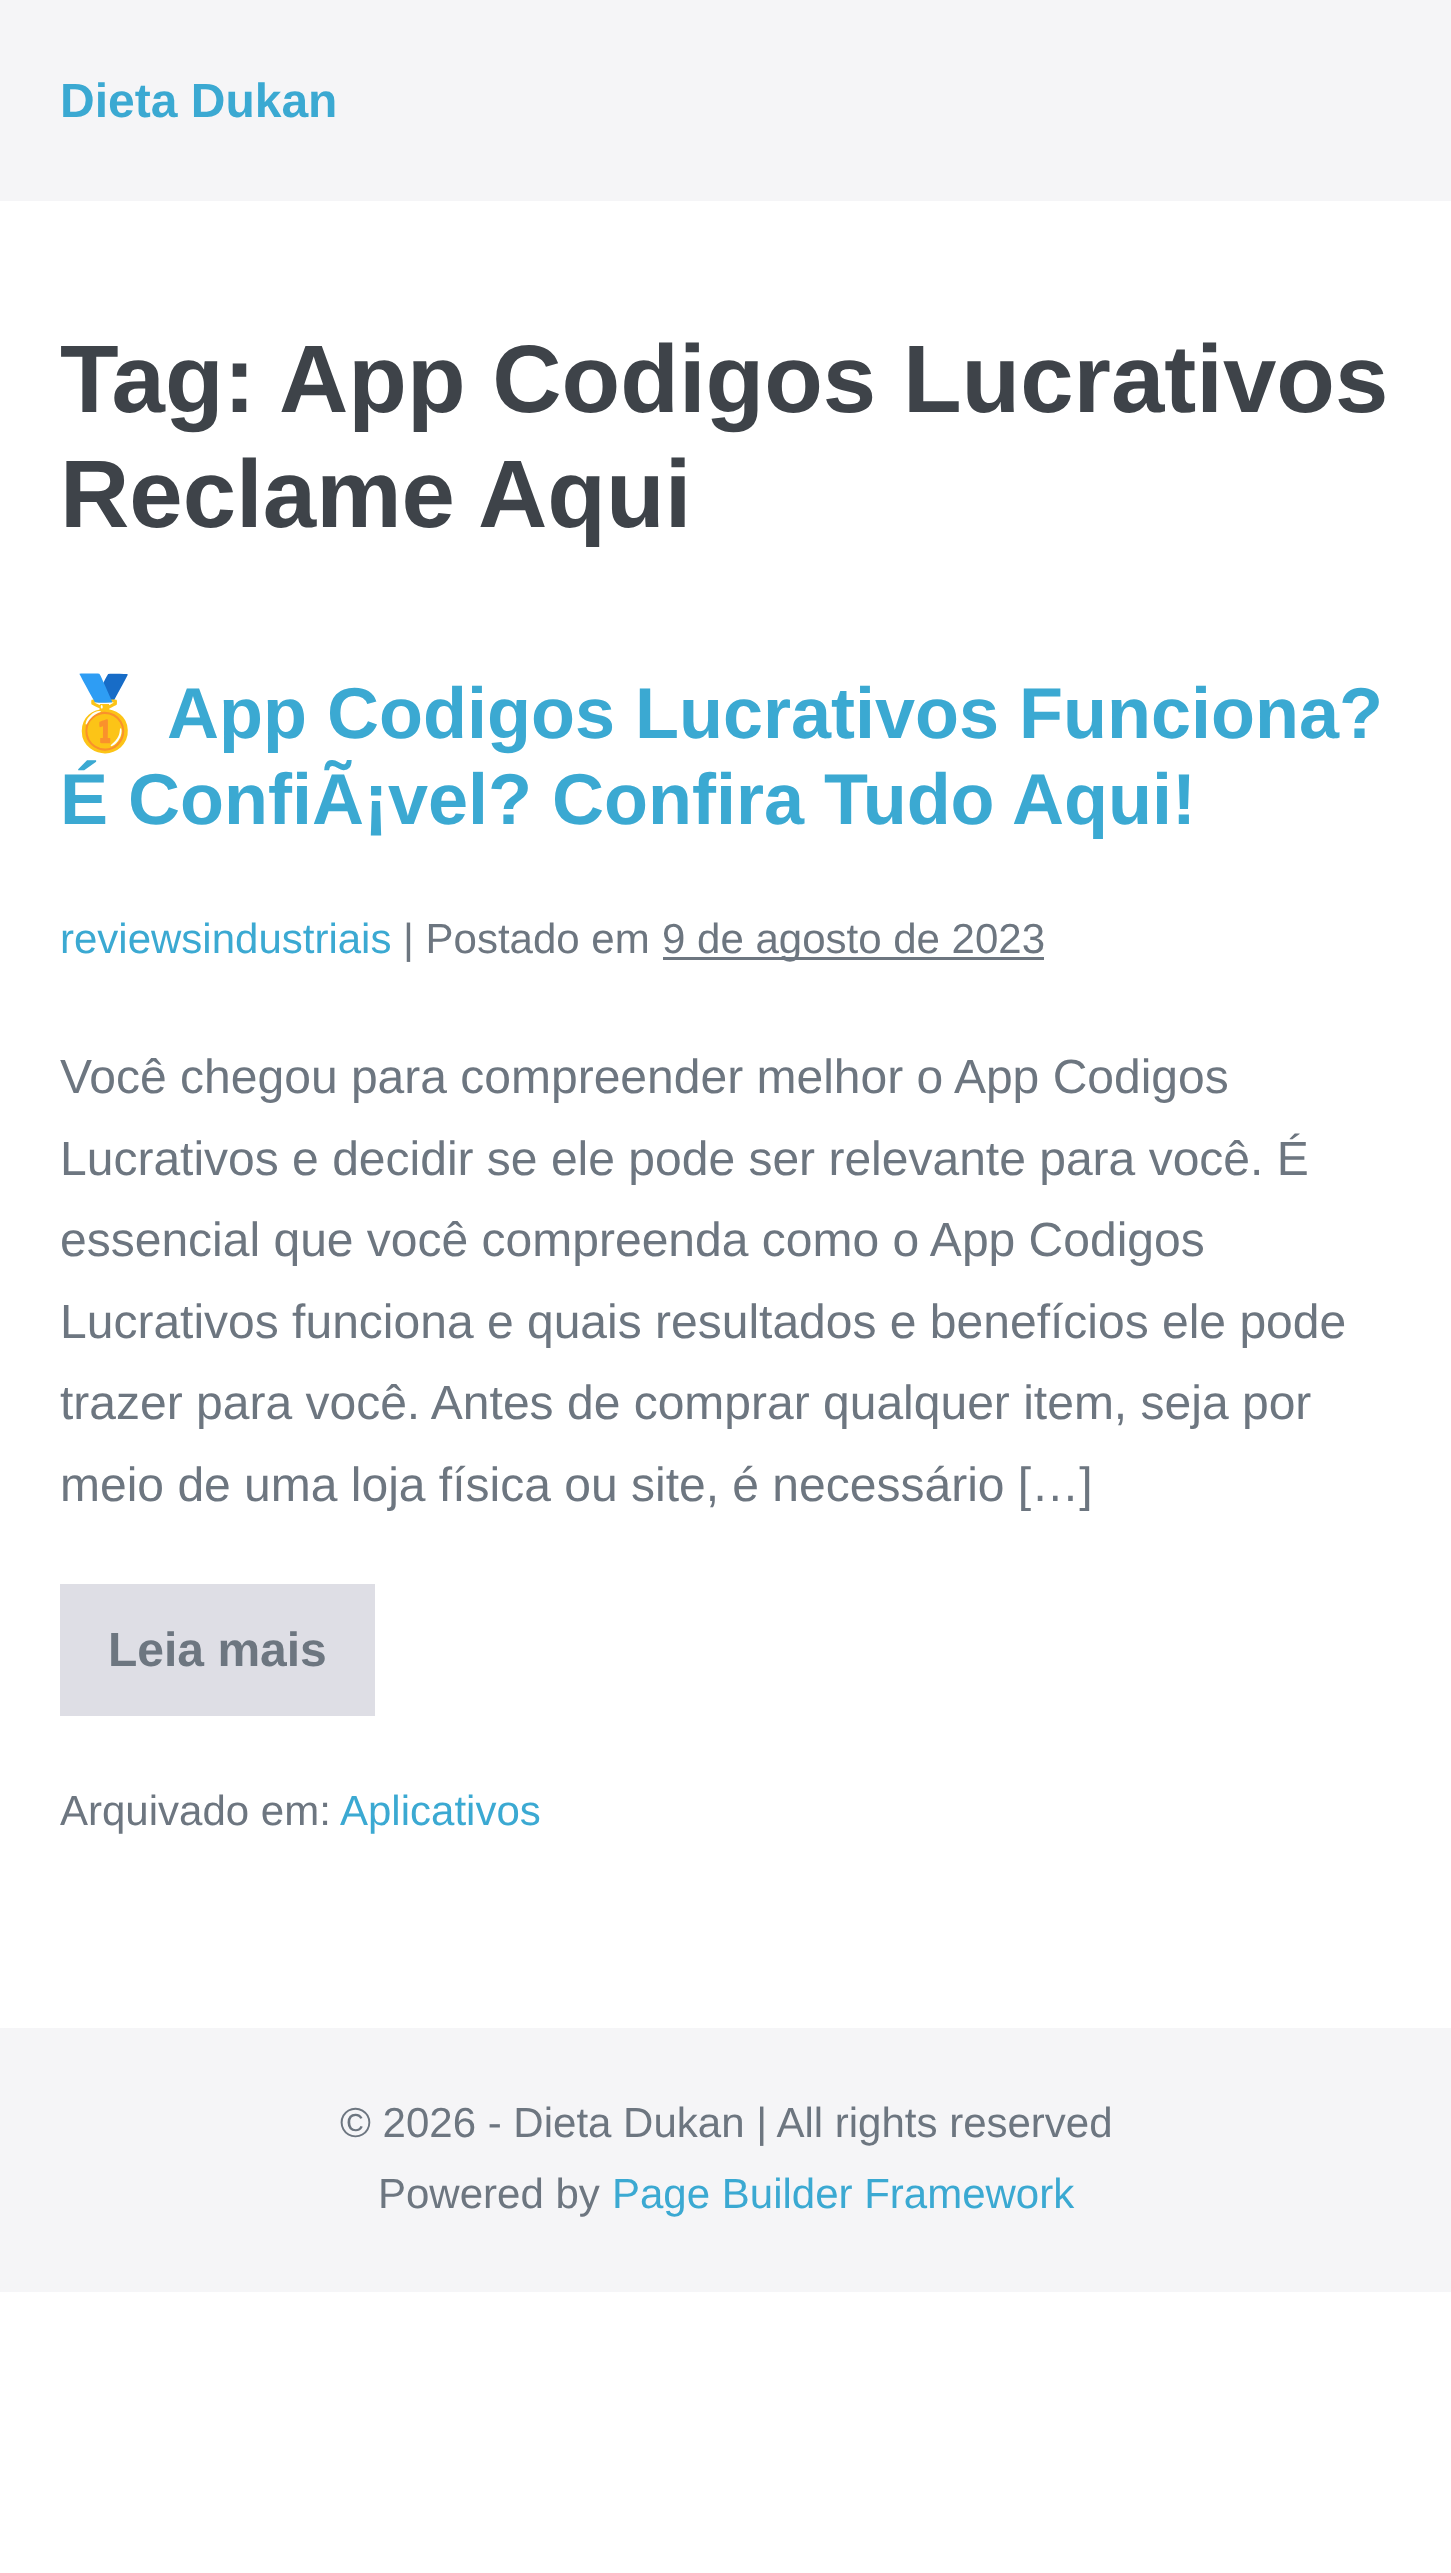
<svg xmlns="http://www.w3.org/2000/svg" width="1451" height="2573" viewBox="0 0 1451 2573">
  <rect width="100%" height="100%" fill="rgb(255,255,255)"/>
  <rect x="0" y="0" width="1451" height="201" fill="rgb(245,245,247)"/>
  <text x="60" y="117" font-family="Liberation Sans" font-size="48" font-weight="bold" fill="rgb(59,169,210)">Dieta Dukan</text>
  <g font-family="Liberation Sans" font-size="96" font-weight="bold" fill="rgb(62,67,73)">
    <text x="60" y="412">Tag:</text>
    <text x="279" y="412">App Codigos Lucrativos</text>
    <text x="60" y="527">Reclame Aqui</text>
  </g>
  <text x="60" y="738" font-family="Noto Color Emoji" font-size="72" font-weight="bold" fill="rgb(59,169,210)">🥇</text>
  <g font-family="Liberation Sans" font-size="72" font-weight="bold" fill="rgb(59,169,210)">
    <text x="167" y="738">App Codigos Lucrativos Funciona?</text>
    <text x="60" y="824">É ConfiÃ¡vel? Confira Tudo Aqui!</text>
  </g>
  <text x="60" y="953" font-family="Liberation Sans" font-size="42" fill="rgb(59,169,210)">reviewsindustriais</text>
  <text x="403" y="953" font-family="Liberation Sans" font-size="42" fill="rgb(109,118,128)">| Postado em</text>
  <rect x="663" y="957" width="381" height="3" fill="rgb(109,118,128)"/>
  <text x="662" y="953" font-family="Liberation Sans" font-size="42" fill="rgb(109,118,128)">9 de agosto de 2023</text>
  <g font-family="Liberation Sans" font-size="48" fill="rgb(109,118,128)">
    <text>
      <tspan x="60" y="1093">Você chegou para compreender melhor o App Codigos</tspan>
      <tspan x="60" y="1175">Lucrativos e decidir se ele pode ser relevante para você. É</tspan>
      <tspan x="60" y="1256">essencial que você compreenda como o App Codigos</tspan>
      <tspan x="60" y="1338">Lucrativos funciona e quais resultados e benefícios ele pode</tspan>
      <tspan x="60" y="1419">trazer para você. Antes de comprar qualquer item, seja por</tspan>
      <tspan x="60" y="1501">meio de uma loja física ou site, é necessário […]</tspan>
    </text>
  </g>
  <rect x="60" y="1584" width="315" height="132" fill="rgb(222,222,229)"/>
  <text x="108" y="1666" font-family="Liberation Sans" font-size="48" font-weight="bold" fill="rgb(109,118,128)">Leia mais</text>
  <text x="60" y="1825" font-family="Liberation Sans" font-size="42" fill="rgb(109,118,128)">Arquivado em:</text>
  <text x="340" y="1825" font-family="Liberation Sans" font-size="42" fill="rgb(59,169,210)">Aplicativos</text>
  <rect x="0" y="2028" width="1451" height="264" fill="rgb(245,245,247)"/>
  <g font-family="Liberation Sans" font-size="42" fill="rgb(109,118,128)">
    <text x="340" y="2137">© 2026 - Dieta Dukan | All rights reserved</text>
    <text x="378" y="2208">Powered by</text>
  </g>
  <text x="612" y="2208" font-family="Liberation Sans" font-size="42" fill="rgb(59,169,210)">Page Builder Framework</text>
</svg>
